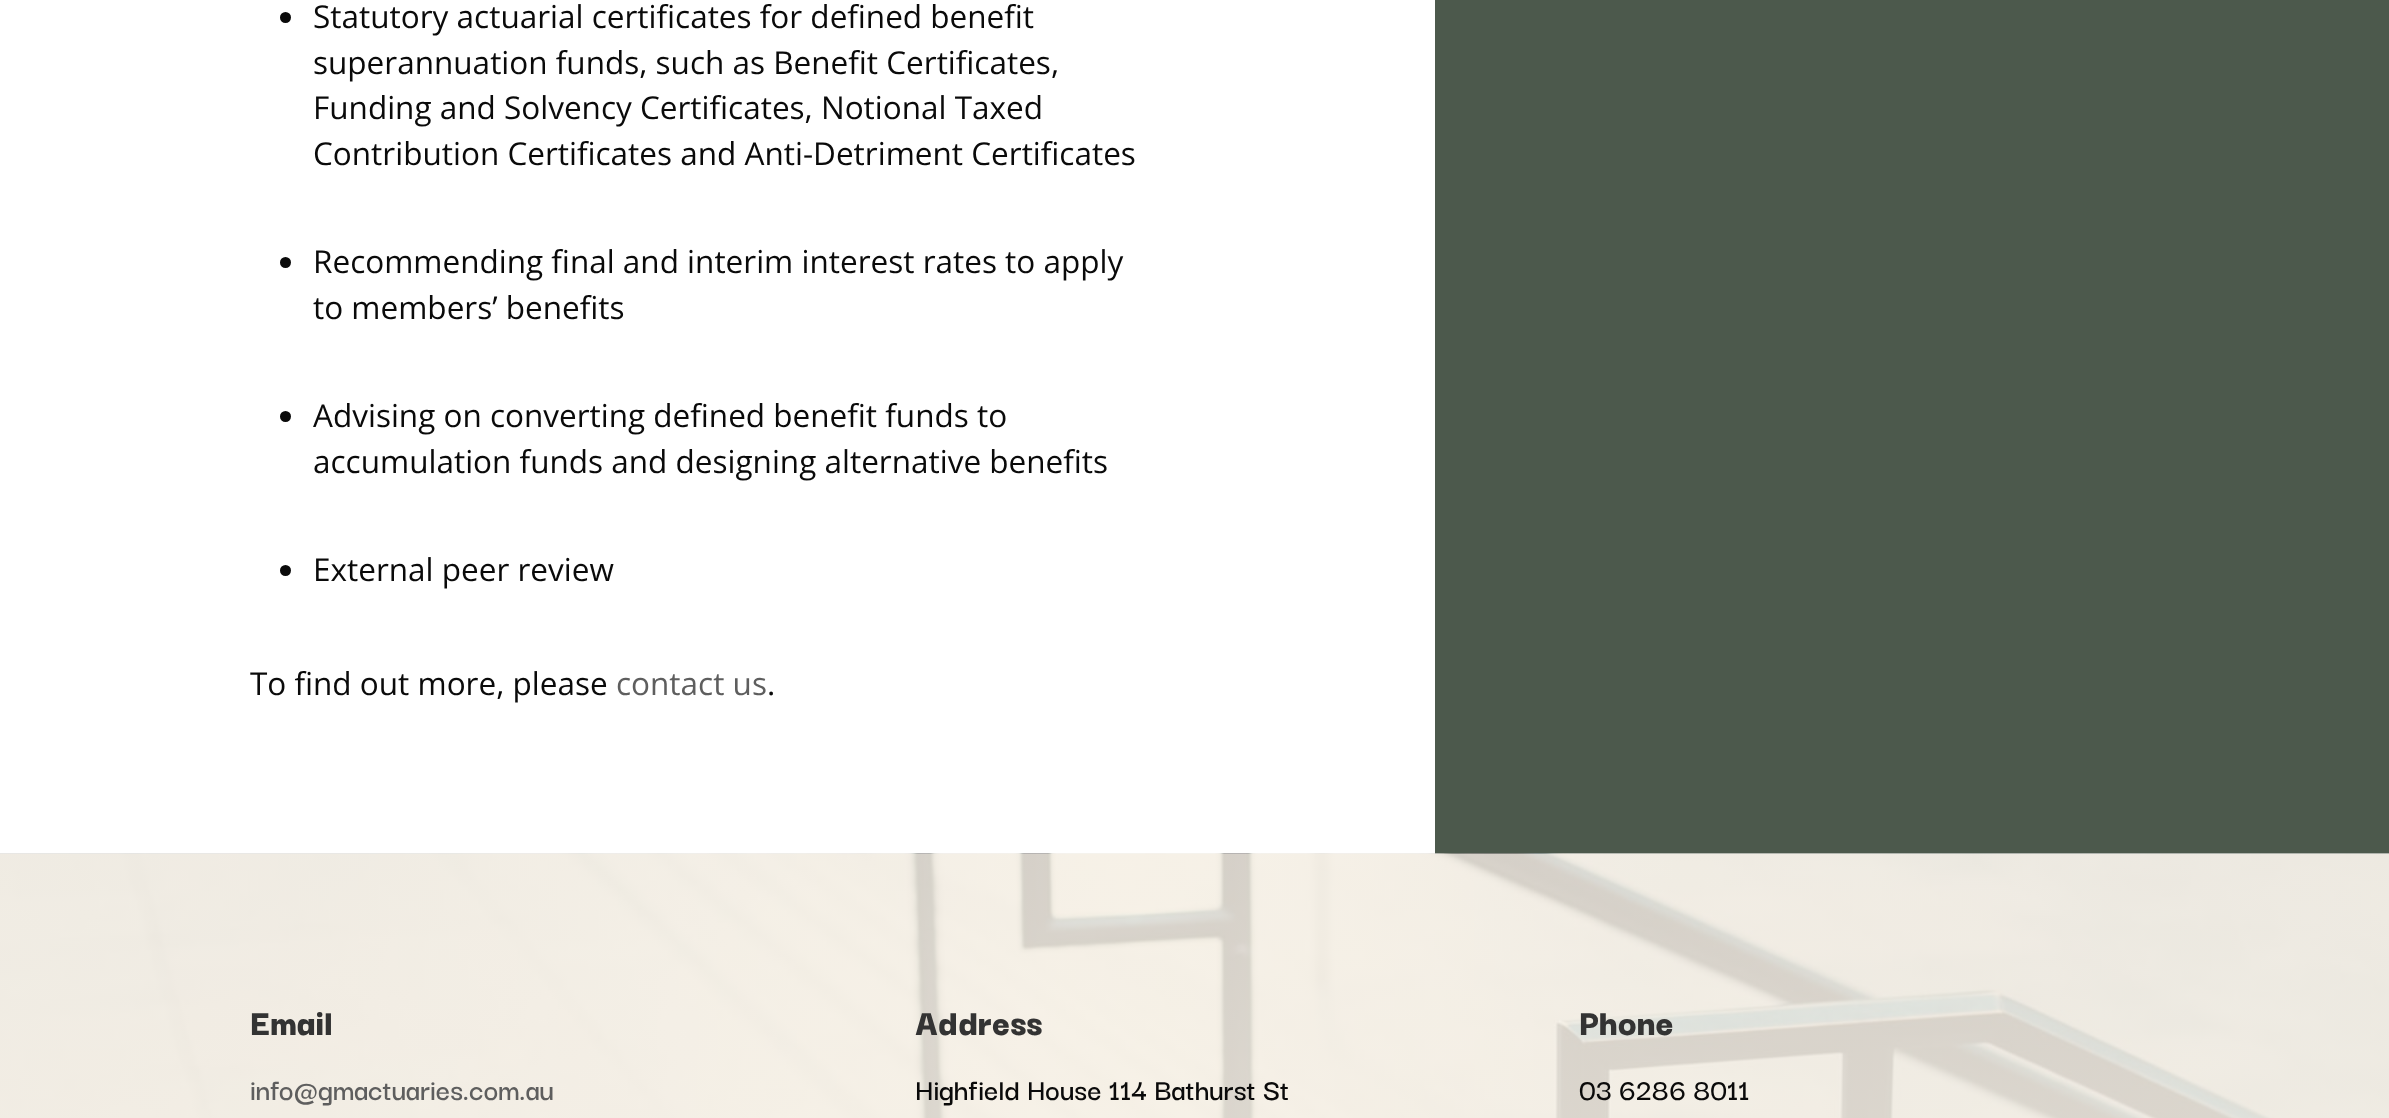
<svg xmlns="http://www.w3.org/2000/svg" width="2389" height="1118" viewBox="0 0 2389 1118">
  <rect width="100%" height="100%" fill="rgb(255,255,255)"/>
  <rect x="1435" y="0" width="954" height="854" fill="rgb(76,89,76)"/>
  <circle cx="285.5" cy="17.5" r="5.5" fill="rgb(10,10,10)"/>
  <g font-family="Open Sans" font-size="31.5" fill="rgb(10,10,10)">
    <text>
      <tspan x="313" y="28">Statutory actuarial certificates for defined benefit</tspan>
      <tspan x="313" y="74">superannuation funds, such as Benefit Certificates,</tspan>
      <tspan x="313" y="119">Funding and Solvency Certificates, Notional Taxed</tspan>
      <tspan x="313" y="165">Contribution Certificates and Anti-Detriment Certificates</tspan>
    </text>
  </g>
  <circle cx="285.5" cy="262.5" r="5.5" fill="rgb(10,10,10)"/>
  <g font-family="Open Sans" font-size="31.5" fill="rgb(10,10,10)">
    <text>
      <tspan x="313" y="273">Recommending final and interim interest rates to apply</tspan>
      <tspan x="313" y="319">to members’ benefits</tspan>
    </text>
  </g>
  <circle cx="285.5" cy="416.5" r="5.5" fill="rgb(10,10,10)"/>
  <g font-family="Open Sans" font-size="31.5" fill="rgb(10,10,10)">
    <text>
      <tspan x="313" y="427">Advising on converting defined benefit funds to</tspan>
      <tspan x="313" y="473">accumulation funds and designing alternative benefits</tspan>
    </text>
  </g>
  <circle cx="285.5" cy="570.5" r="5.5" fill="rgb(10,10,10)"/>
  <g font-family="Open Sans" font-size="31.5" fill="rgb(10,10,10)">
    <text x="313" y="581">External peer review</text>
    <text x="250" y="695">To find out more, please</text>
  </g>
  <text x="616" y="695" font-family="Open Sans" font-size="31.5" fill="rgb(94,94,94)">contact us</text>
  <text x="767" y="695" font-family="Open Sans" font-size="31.5" fill="rgb(10,10,10)">.</text>
  <image x="0" y="853" width="2389" height="265" href="pic1.png"/>
  <text x="250" y="1035" font-family="Darker Grotesque" font-size="38.5" font-weight="900" fill="rgb(51,51,51)">Email</text>
  <text x="250" y="1100" font-family="Darker Grotesque" font-size="31.5" font-weight="600" fill="rgb(94,94,94)">info@gmactuaries.com.au</text>
  <text x="915" y="1035" font-family="Darker Grotesque" font-size="38.5" font-weight="900" fill="rgb(51,51,51)">Address</text>
  <text x="915" y="1100" font-family="Darker Grotesque" font-size="31.5" font-weight="600" fill="rgb(10,10,10)">Highfield House 114 Bathurst St</text>
  <text x="1579" y="1035" font-family="Darker Grotesque" font-size="38.5" font-weight="900" fill="rgb(51,51,51)">Phone</text>
  <text x="1579" y="1100" font-family="Darker Grotesque" font-size="31.5" font-weight="600" fill="rgb(10,10,10)">03 6286 8011</text>
</svg>
